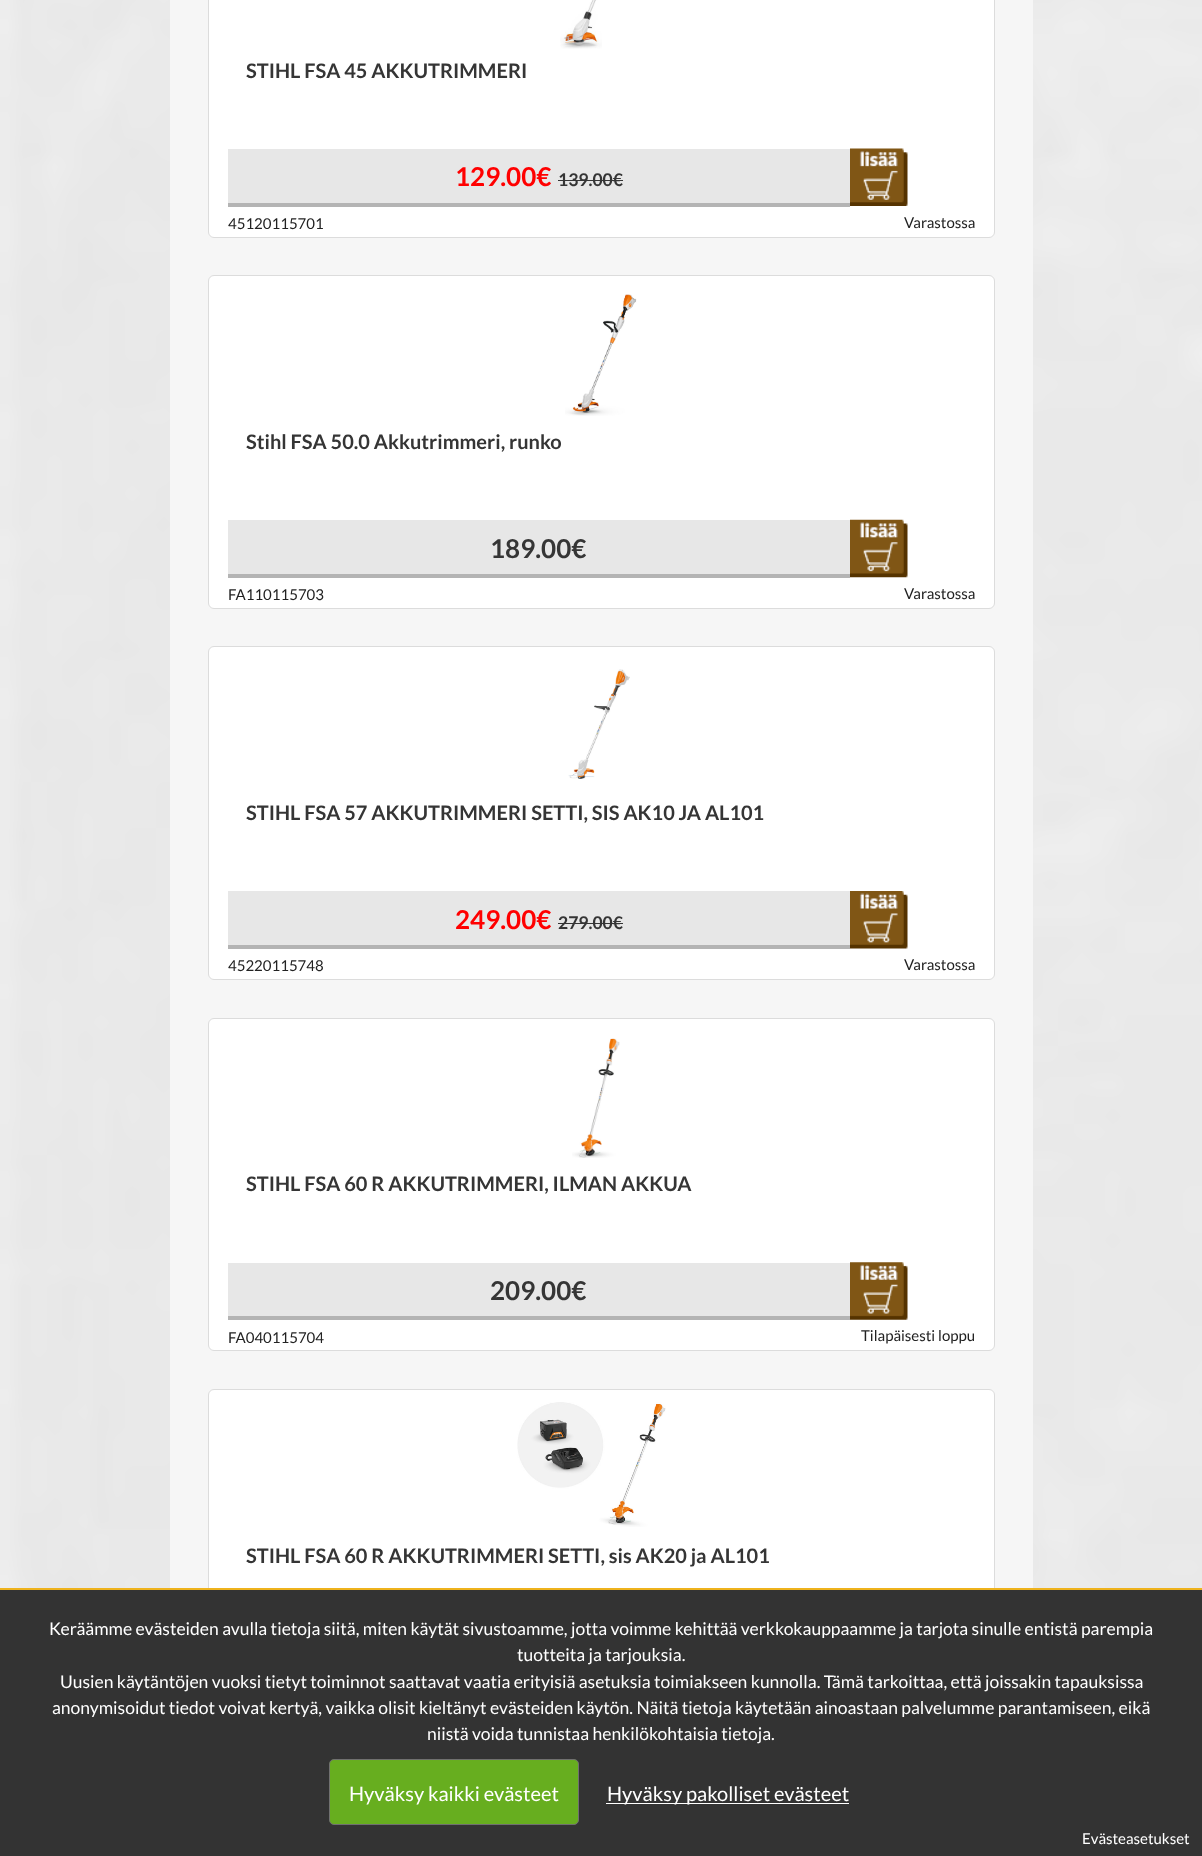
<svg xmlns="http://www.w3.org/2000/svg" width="1202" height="1856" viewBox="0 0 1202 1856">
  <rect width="100%" height="100%" fill="rgb(255,255,255)"/>
  <image x="0" y="0" width="1202" height="1588" href="pic1.png"/>
  <rect x="170" y="0" width="863" height="1588" fill="rgb(246,246,246)"/>
  <rect x="208.5" y="-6.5" width="786" height="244" rx="5.5" fill="rgb(255,255,255)" stroke="rgb(220,220,220)"/>
  <image x="560" y="0" width="42" height="49" href="pic2.png"/>
  <text x="246" y="78" font-family="Lato" font-size="20" font-weight="bold" fill="rgb(53,53,53)">STIHL FSA 45 AKKUTRIMMERI</text>
  <rect x="228" y="149" width="622" height="54" fill="rgb(231,231,231)"/>
  <rect x="228" y="203" width="622" height="4" fill="rgb(180,180,180)"/>
  <text x="455" y="186" font-family="Lato" font-size="26" font-weight="bold" fill="rgb(255,0,0)">129.00€</text>
  <text x="558" y="186" font-family="Lato" font-size="17.5" font-weight="bold" fill="rgb(53,53,53)">139.00€</text>
  <rect x="558" y="180" width="65" height="1" fill="rgb(53,53,53)"/>
  <image x="850" y="148" width="58" height="58" href="pic3.png"/>
  <g font-family="Lato" font-size="15" fill="rgb(34,34,34)">
    <text x="228" y="229">45120115701</text>
    <text x="904" y="228">Varastossa</text>
  </g>
  <rect x="208.5" y="275.5" width="786" height="333" rx="5.5" fill="rgb(255,255,255)" stroke="rgb(220,220,220)"/>
  <image x="565" y="294" width="72" height="122" href="pic4.png"/>
  <text x="246" y="449" font-family="Lato" font-size="20" font-weight="bold" fill="rgb(53,53,53)">Stihl FSA 50.0 Akkutrimmeri, runko</text>
  <rect x="228" y="520" width="622" height="54" fill="rgb(231,231,231)"/>
  <rect x="228" y="574" width="622" height="4" fill="rgb(180,180,180)"/>
  <text x="490" y="558" font-family="Lato" font-size="26" font-weight="bold" fill="rgb(53,53,53)">189.00€</text>
  <image x="850" y="519" width="58" height="59" href="pic5.png"/>
  <g font-family="Lato" font-size="15" fill="rgb(34,34,34)">
    <text x="228" y="600">FA110115703</text>
    <text x="904" y="599">Varastossa</text>
  </g>
  <rect x="208.5" y="646.5" width="786" height="333" rx="5.5" fill="rgb(255,255,255)" stroke="rgb(220,220,220)"/>
  <image x="568" y="669" width="62" height="110" href="pic6.png"/>
  <text x="246" y="820" font-family="Lato" font-size="20" font-weight="bold" fill="rgb(53,53,53)">STIHL FSA 57 AKKUTRIMMERI SETTI, SIS AK10 JA AL101</text>
  <rect x="228" y="891" width="622" height="54" fill="rgb(231,231,231)"/>
  <rect x="228" y="945" width="622" height="4" fill="rgb(180,180,180)"/>
  <text x="455" y="929" font-family="Lato" font-size="26" font-weight="bold" fill="rgb(255,0,0)">249.00€</text>
  <text x="558" y="929" font-family="Lato" font-size="17.5" font-weight="bold" fill="rgb(53,53,53)">279.00€</text>
  <rect x="558" y="923" width="65" height="1" fill="rgb(53,53,53)"/>
  <image x="850" y="891" width="58" height="58" href="pic7.png"/>
  <g font-family="Lato" font-size="15" fill="rgb(34,34,34)">
    <text x="228" y="971">45220115748</text>
    <text x="904" y="970">Varastossa</text>
  </g>
  <rect x="208.5" y="1018.5" width="786" height="332" rx="5.5" fill="rgb(255,255,255)" stroke="rgb(220,220,220)"/>
  <image x="572" y="1038" width="48" height="120" href="pic8.png"/>
  <text x="246" y="1191" font-family="Lato" font-size="20" font-weight="bold" fill="rgb(53,53,53)">STIHL FSA 60 R AKKUTRIMMERI, ILMAN AKKUA</text>
  <rect x="228" y="1263" width="622" height="53" fill="rgb(231,231,231)"/>
  <rect x="228" y="1316" width="622" height="4" fill="rgb(180,180,180)"/>
  <text x="490" y="1300" font-family="Lato" font-size="26" font-weight="bold" fill="rgb(53,53,53)">209.00€</text>
  <image x="850" y="1262" width="58" height="58" href="pic9.png"/>
  <g font-family="Lato" font-size="15" fill="rgb(34,34,34)">
    <text x="228" y="1343">FA040115704</text>
    <text x="861" y="1341">Tilapäisesti loppu</text>
  </g>
  <rect x="208.5" y="1389.5" width="786" height="333" rx="5.5" fill="rgb(255,255,255)" stroke="rgb(220,220,220)"/>
  <image x="517" y="1402" width="149" height="125" href="pic10.png"/>
  <text x="246" y="1563" font-family="Lato" font-size="20" font-weight="bold" fill="rgb(53,53,53)">STIHL FSA 60 R AKKUTRIMMERI SETTI, sis AK20 ja AL101</text>
  <rect x="0" y="1588" width="1202" height="2" fill="rgb(238,178,28)"/>
  <rect x="0" y="1590" width="1202" height="266" fill="rgb(51,51,51)"/>
  <g font-family="Lato" font-size="17.5" fill="rgb(255,255,255)">
    <text x="49" y="1635">Keräämme evästeiden avulla tietoja siitä, miten käytät sivustoamme, jotta voimme kehittää verkkokauppaamme ja tarjota sinulle entistä parempia</text>
    <text x="517" y="1661">tuotteita ja tarjouksia.</text>
    <text x="60" y="1688">Uusien käytäntöjen vuoksi tietyt toiminnot saattavat vaatia erityisiä asetuksia toimiakseen kunnolla. Tämä tarkoittaa, että joissakin tapauksissa</text>
    <text x="52" y="1714">anonymisoidut tiedot voivat kertyä, vaikka olisit kieltänyt evästeiden käytön. Näitä tietoja käytetään ainoastaan palvelumme parantamiseen, eikä</text>
    <text x="427" y="1740">niistä voida tunnistaa henkilökohtaisia tietoja.</text>
  </g>
  <rect x="329.5" y="1759.5" width="249" height="65" rx="4.5" fill="rgb(103,174,31)" stroke="rgb(112,112,112)"/>
  <text x="349" y="1801" font-family="Lato" font-size="20" fill="rgb(255,255,255)">Hyväksy kaikki evästeet</text>
  <rect x="606" y="1803" width="243" height="1" fill="rgb(255,255,255)"/>
  <text x="607" y="1801" font-family="Lato" font-size="20" fill="rgb(255,255,255)">Hyväksy pakolliset evästeet</text>
  <text x="1082" y="1844" font-family="Lato" font-size="15" fill="rgb(255,255,255)">Evästeasetukset</text>
</svg>
